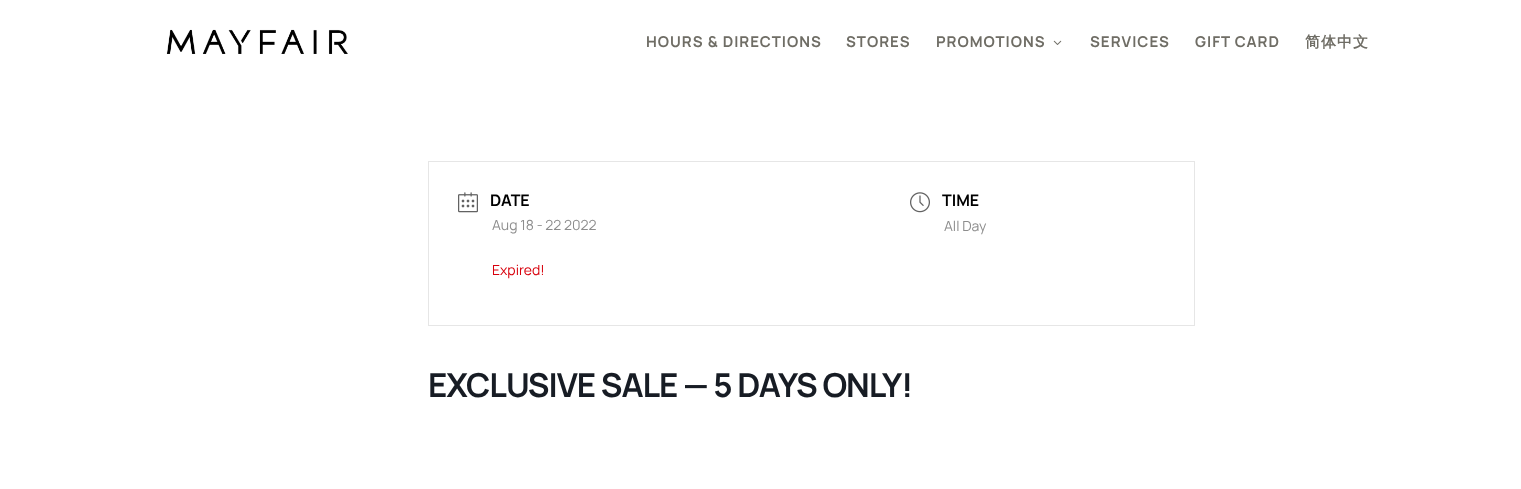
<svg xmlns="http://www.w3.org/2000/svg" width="1521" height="489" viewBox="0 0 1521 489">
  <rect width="100%" height="100%" fill="rgb(255,255,255)"/>
  <image x="166" y="29" width="182" height="25" href="pic1.png"/>
  <g font-family="Manrope" font-size="15" font-weight="bold" letter-spacing="1" fill="rgb(111,109,101)">
    <text x="646" y="47">HOURS &amp; DIRECTIONS</text>
    <text x="846" y="47">STORES</text>
    <text x="936" y="47">PROMOTIONS</text>
  </g>
  <image x="1053" y="40" width="9" height="5" href="pic2.png"/>
  <g font-family="Manrope" font-size="15" font-weight="bold" letter-spacing="1" fill="rgb(111,109,101)">
    <text x="1090" y="47">SERVICES</text>
    <text x="1195" y="47">GIFT CARD</text>
  </g>
  <text x="1305" y="47" font-family="WenQuanYi Zen Hei" font-size="15" font-weight="bold" letter-spacing="1" fill="rgb(111,109,101)">简体中文</text>
  <rect x="428.5" y="161.5" width="766" height="164" fill="none" stroke="rgb(230,230,230)"/>
  <image x="458" y="192" width="20" height="21" href="pic3.png"/>
  <text x="490" y="206" font-family="Manrope" font-size="16" font-weight="bold" fill="rgb(0,0,0)">DATE</text>
  <text x="492" y="230" font-family="Manrope" font-size="14" font-weight="200" fill="rgb(141,141,141)">Aug 18 - 22 2022</text>
  <text x="492" y="275" font-family="Manrope" font-size="14" font-weight="200" fill="rgb(216,0,12)">Expired!</text>
  <image x="910" y="192" width="20" height="21" href="pic4.png"/>
  <text x="942" y="206" font-family="Manrope" font-size="16" font-weight="bold" fill="rgb(0,0,0)">TIME</text>
  <text x="944" y="231" font-family="Manrope" font-size="14" font-weight="200" fill="rgb(141,141,141)">All Day</text>
  <text x="428" y="397" font-family="Manrope" font-size="33" font-weight="bold" letter-spacing="-1" fill="rgb(23,28,36)">EXCLUSIVE SALE — 5 DAYS ONLY!</text>
</svg>
